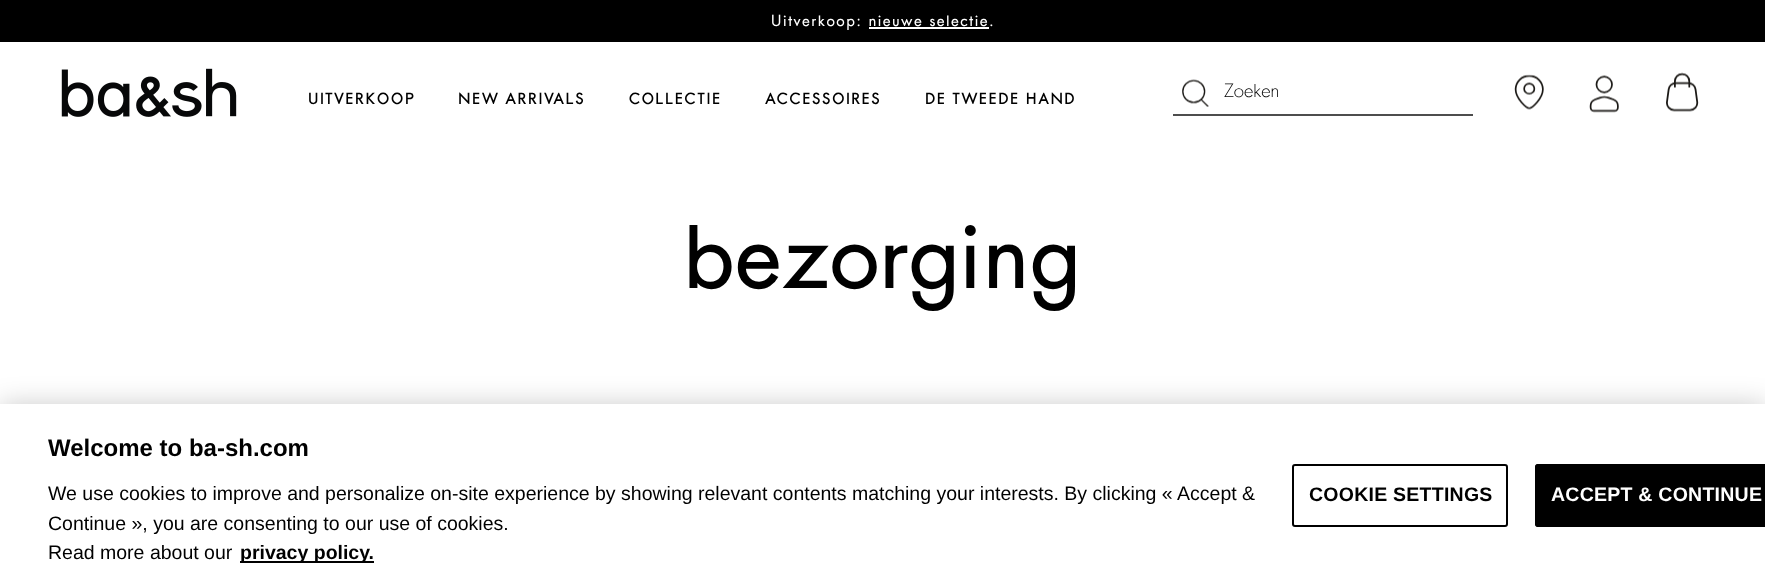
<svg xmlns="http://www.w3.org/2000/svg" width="1765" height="582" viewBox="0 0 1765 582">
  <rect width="100%" height="100%" fill="rgb(255,255,255)"/>
  <rect x="0" y="0" width="1765" height="42" fill="rgb(0,0,0)"/>
  <text x="771" y="26" font-family="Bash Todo" font-size="15" font-weight="500" letter-spacing="1.45" fill="rgb(255,255,255)">Uitverkoop: nieuwe selectie.</text>
  <rect x="869" y="27" width="120" height="2" fill="rgb(255,255,255)"/>
  <image x="61" y="68" width="176" height="49" href="pic1.png"/>
  <g font-family="Bash Todo" font-size="15" font-weight="bold" letter-spacing="1.5" fill="rgb(0,0,0)">
    <text x="308" y="104">UITVERKOOP</text>
    <text x="458" y="104">NEW ARRIVALS</text>
    <text x="629" y="104">COLLECTIE</text>
    <text x="765" y="104">ACCESSOIRES</text>
    <text x="925" y="104">DE TWEEDE HAND</text>
  </g>
  <rect x="1173" y="114" width="300" height="2" fill="rgb(77,77,77)"/>
  <image x="1182" y="79" width="27" height="28" href="pic2.png"/>
  <text x="1224" y="97" font-family="Bash Todo" font-size="18" font-weight="100" fill="rgb(0,0,0)">Zoeken</text>
  <image x="1514" y="74" width="30" height="36" href="pic3.png"/>
  <image x="1589" y="75" width="30" height="38" href="pic4.png"/>
  <image x="1666" y="72" width="33" height="40" href="pic5.png"/>
  <text x="683" y="288" font-family="Bash Todo" font-size="90" font-weight="500" fill="rgb(0,0,0)">bezorging</text>
  <rect x="0" y="404" width="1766" height="178" fill="rgba(0,0,0,0.2)" filter="blur(13.5px)"/>
  <rect x="0" y="404" width="1765" height="178" fill="rgb(255,255,255)"/>
  <text x="48" y="456" font-family="Liberation Sans" font-size="24" font-weight="bold" fill="rgb(0,0,0)">Welcome to ba-sh.com</text>
  <g font-family="Liberation Sans" font-size="19.5" fill="rgb(0,0,0)">
    <text>
      <tspan x="48" y="500">We use cookies to improve and personalize on-site experience by showing relevant contents matching your interests. By clicking « Accept &amp;</tspan>
      <tspan x="48" y="530">Continue », you are consenting to our use of cookies.</tspan>
      <tspan x="48" y="559">Read more about our</tspan>
    </text>
  </g>
  <rect x="240" y="561" width="134" height="2" fill="rgb(0,0,0)"/>
  <text x="240" y="559" font-family="Liberation Sans" font-size="19.5" font-weight="bold" fill="rgb(0,0,0)">privacy policy.</text>
  <rect x="1293" y="465" width="214" height="61" rx="2" fill="none" stroke="rgb(0,0,0)" stroke-width="2"/>
  <text x="1309" y="501" font-family="Liberation Sans" font-size="19.5" font-weight="bold" letter-spacing="0.25" fill="rgb(0,0,0)">COOKIE SETTINGS</text>
  <path d="M1538 464H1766V527H1538C1536.5 527 1535 525.5 1535 524V467C1535 465.5 1536.5 464 1538 464Z" fill="rgb(0,0,0)"/>
  <rect x="1536" y="465" width="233" height="61" rx="2" fill="none" stroke="rgb(0,0,0)" stroke-width="2"/>
  <text x="1551" y="501" font-family="Liberation Sans" font-size="19.5" font-weight="bold" letter-spacing="0.25" fill="rgb(255,255,255)">ACCEPT &amp; CONTINUE</text>
</svg>
